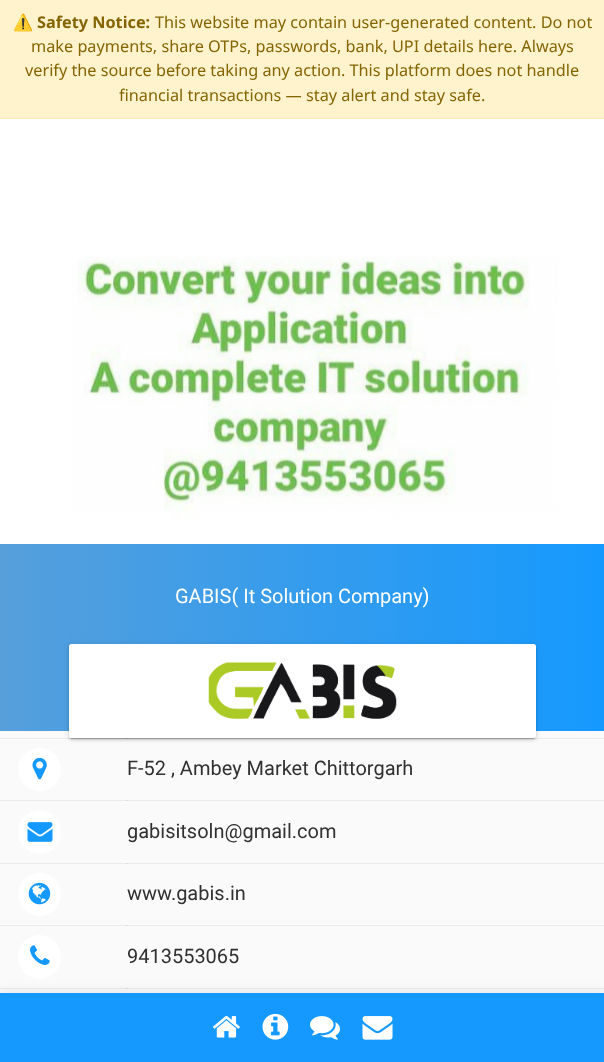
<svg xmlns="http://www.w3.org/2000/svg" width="604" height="1062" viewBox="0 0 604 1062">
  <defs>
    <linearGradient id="g1" gradientUnits="userSpaceOnUse" x1="0" y1="638" x2="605" y2="638"><stop offset="0" stop-color="rgb(86,159,219)"/><stop offset="1" stop-color="rgb(21,153,254)"/></linearGradient>
  </defs>
  <rect width="100%" height="100%" fill="rgb(255,243,205)"/>
  <rect x="0" y="118" width="604" height="1" fill="rgb(255,238,186)"/>
  <text x="13" y="28" font-family="Noto Color Emoji" font-size="16.25" fill="rgb(133,100,4)">⚠️</text>
  <text x="37" y="28" font-family="Noto Sans" font-size="16.25" font-weight="bold" fill="rgb(133,100,4)">Safety Notice:</text>
  <g font-family="Noto Sans" font-size="16.25" fill="rgb(133,100,4)">
    <text x="155" y="28">This website may contain user-generated content. Do not</text>
    <text x="31" y="52">make payments, share OTPs, passwords, bank, UPI details here. Always</text>
    <text x="25" y="76">verify the source before taking any action. This platform does not handle</text>
    <text x="119" y="101">financial transactions — stay alert and stay safe.</text>
  </g>
  <rect x="0" y="731" width="604" height="262" fill="rgb(250,250,250)"/>
  <rect x="0" y="738" width="604" height="1" fill="rgb(235,235,235)"/>
  <rect x="0" y="800" width="604" height="1" fill="rgb(235,235,235)"/>
  <rect x="0" y="863" width="604" height="1" fill="rgb(235,235,235)"/>
  <rect x="0" y="925" width="604" height="1" fill="rgb(235,235,235)"/>
  <rect x="0" y="988" width="604" height="1" fill="rgb(235,235,235)"/>
  <image x="0" y="119" width="604" height="425" href="pic1.png"/>
  <image x="77" y="257" width="477" height="255" href="pic2.png"/>
  <rect x="0" y="544" width="604" height="187" fill="url(#g1)"/>
  <text x="175" y="603" font-family="Roboto" font-size="20" fill="rgb(255,255,255)">GABIS( It Solution Company)</text>
  <circle cx="39.5" cy="769.5" r="21.5" fill="rgb(255,255,255)"/>
  <rect x="126" y="738" width="2" height="1" fill="rgb(221,221,221)"/>
  <rect x="69" y="645" width="467" height="94" rx="2.5" fill="rgba(0,0,0,0.12)" filter="blur(3px)"/>
  <rect x="71" y="650" width="463" height="89" fill="rgba(0,0,0,0.2)" filter="blur(0.5px)"/>
  <rect x="69" y="646" width="467" height="94" rx="2.5" fill="rgba(0,0,0,0.14)" filter="blur(1px)"/>
  <rect x="69" y="644" width="467" height="94" rx="2.5" fill="rgb(255,255,255)"/>
  <image x="208" y="662" width="189" height="57" href="pic3.png"/>
  <image x="32" y="757" width="15" height="23" href="pic4.png"/>
  <text x="127" y="775" font-family="Roboto" font-size="20" fill="rgb(49,49,49)">F-52 , Ambey Market Chittorgarh</text>
  <rect x="18" y="810" width="43" height="44" rx="21.5" fill="rgb(255,255,255)"/>
  <image x="27" y="822" width="26" height="20" href="pic5.png"/>
  <rect x="126" y="800" width="2" height="1" fill="rgb(221,221,221)"/>
  <text x="127" y="838" font-family="Roboto" font-size="20" fill="rgb(49,49,49)">gabisitsoln@gmail.com</text>
  <circle cx="39.5" cy="894.5" r="21.5" fill="rgb(255,255,255)"/>
  <image x="28" y="882" width="23" height="23" href="pic6.png"/>
  <rect x="126" y="863" width="2" height="1" fill="rgb(221,221,221)"/>
  <text x="127" y="900" font-family="Roboto" font-size="20" fill="rgb(49,49,49)">www.gabis.in</text>
  <rect x="18" y="935" width="43" height="44" rx="21.5" fill="rgb(255,255,255)"/>
  <image x="30" y="945" width="20" height="20" href="pic7.png"/>
  <rect x="126" y="925" width="2" height="1" fill="rgb(221,221,221)"/>
  <text x="127" y="963" font-family="Roboto" font-size="20" fill="rgb(49,49,49)">9413553065</text>
  <rect x="126" y="988" width="2" height="1" fill="rgb(221,221,221)"/>
  <rect x="0" y="993" width="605" height="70" fill="rgba(0,0,0,0.1)" filter="blur(6px)"/>
  <rect x="0" y="993" width="604" height="69" fill="rgb(21,153,254)"/>
  <image x="213" y="1016" width="27" height="22" href="pic8.png"/>
  <image x="262" y="1013" width="27" height="27" href="pic9.png"/>
  <image x="310" y="1016" width="30" height="24" href="pic10.png"/>
  <image x="362" y="1016" width="31" height="24" href="pic11.png"/>
</svg>
